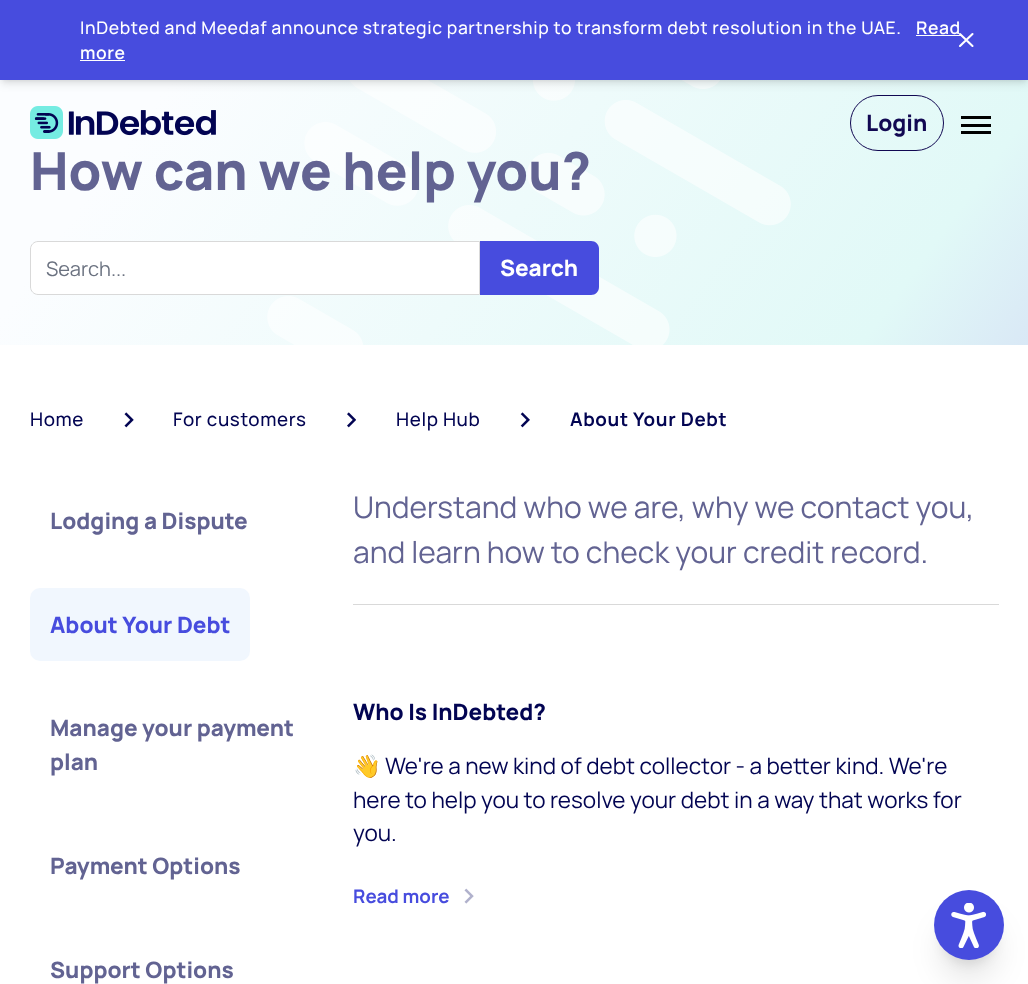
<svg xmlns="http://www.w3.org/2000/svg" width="1028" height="984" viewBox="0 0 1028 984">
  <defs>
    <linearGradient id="g1" gradientUnits="userSpaceOnUse" x1="94" y1="-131" x2="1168" y2="644"><stop offset="0.14" stop-color="rgb(251,253,255)"/><stop offset="0.68" stop-color="rgb(225,249,247)"/><stop offset="0.94" stop-color="rgb(205,206,244)"/><stop offset="1" stop-color="rgb(197,198,245)"/></linearGradient>
  </defs>
  <rect width="100%" height="100%" fill="rgb(255,255,255)"/>
  <rect x="0" y="80" width="1028" height="265" fill="url(#g1)"/>
  <image x="267" y="80" width="524" height="265" href="pic2.png"/>
  <rect x="3" y="5" width="1023" height="75" fill="rgba(0,0,0,0.1)" filter="blur(2.5px)"/>
  <rect x="850.5" y="95.5" width="93" height="55" rx="27.5" fill="none" stroke="rgb(17,8,82)"/>
  <rect x="1" y="6" width="1027" height="78" fill="rgba(0,0,0,0.1)" filter="blur(4px)"/>
  <rect x="0" y="0" width="1028" height="80" fill="rgb(71,76,222)"/>
  <text x="80" y="34" font-family="Manrope" font-size="17.5" font-weight="500" letter-spacing="0.62" fill="rgb(255,255,255)">InDebted and Meedaf announce strategic partnership to transform debt resolution in the UAE.</text>
  <text x="916" y="34" font-family="Manrope" font-size="17.5" font-weight="600" letter-spacing="0.62" fill="rgb(255,255,255)">Read</text>
  <rect x="916" y="35" width="45" height="1" fill="rgb(255,255,255)"/>
  <text x="80" y="59" font-family="Manrope" font-size="17.5" font-weight="600" letter-spacing="0.62" fill="rgb(255,255,255)">more</text>
  <rect x="80" y="60" width="45" height="1" fill="rgb(255,255,255)"/>
  <path d="M960 46L972.5 34M960 34L972.5 46" fill="none" stroke="rgb(255,255,255)" stroke-width="2.1" stroke-linecap="round" stroke-linejoin="round"/>
  <image x="30" y="106" width="186" height="33" href="pic1.png"/>
  <text x="866" y="131" font-family="Manrope" font-size="22.5" font-weight="800" fill="rgb(17,8,82)">Login</text>
  <rect x="961" y="116" width="30" height="3" fill="rgb(0,0,0)"/>
  <rect x="961" y="124" width="30" height="3" fill="rgb(0,0,0)"/>
  <rect x="961" y="131" width="30" height="3" fill="rgb(0,0,0)"/>
  <text x="30" y="190" font-family="Manrope" font-size="52.5" font-weight="800" fill="rgb(98,99,146)">How can we help you?</text>
  <path d="M38 241.5H479.5V294.5H38C34 294.5 30.5 291 30.5 287V249C30.5 245 34 241.5 38 241.5Z" fill="rgb(255,255,255)" stroke="rgb(217,217,217)"/>
  <text x="46" y="276" font-family="Manrope" font-size="20" fill="rgb(107,114,128)">Search...</text>
  <path d="M480 241H591C595.5 241 599 244.5 599 249V287C599 291.5 595.5 295 591 295H480Z" fill="rgb(71,76,222)"/>
  <text x="500" y="276" font-family="Manrope" font-size="22.5" font-weight="800" fill="rgb(255,255,255)">Search</text>
  <text x="30" y="426" font-family="Manrope" font-size="18.75" font-weight="500" letter-spacing="0.62" fill="rgb(2,4,82)">Home</text>
  <image x="124" y="412" width="10" height="16" href="pic3.png"/>
  <text x="173" y="426" font-family="Manrope" font-size="18.75" font-weight="500" letter-spacing="0.62" fill="rgb(2,4,82)">For customers</text>
  <image x="347" y="412" width="9" height="16" href="pic4.png"/>
  <text x="396" y="426" font-family="Manrope" font-size="18.75" font-weight="500" letter-spacing="0.62" fill="rgb(2,4,82)">Help Hub</text>
  <image x="520" y="412" width="10" height="16" href="pic5.png"/>
  <text x="570" y="426" font-family="Manrope" font-size="18.75" font-weight="bold" letter-spacing="0.62" fill="rgb(2,4,82)">About Your Debt</text>
  <text x="50" y="529" font-family="Manrope" font-size="22.5" font-weight="800" fill="rgb(98,99,146)">Lodging a Dispute</text>
  <rect x="30" y="588" width="220" height="73" rx="10" fill="rgb(241,247,254)"/>
  <text x="50" y="633" font-family="Manrope" font-size="22.5" font-weight="800" fill="rgb(71,76,222)">About Your Debt</text>
  <g font-family="Manrope" font-size="22.5" font-weight="800" fill="rgb(98,99,146)">
    <text>
      <tspan x="50" y="736">Manage your payment</tspan>
      <tspan x="50" y="770">plan</tspan>
    </text>
    <text x="50" y="874">Payment Options</text>
    <text x="50" y="978">Support Options</text>
  </g>
  <rect x="353" y="604" width="646" height="1" fill="rgb(217,217,217)"/>
  <g font-family="Manrope" font-size="30" fill="rgb(98,99,146)">
    <text>
      <tspan x="353" y="518">Understand who we are, why we contact you,</tspan>
      <tspan x="353" y="563">and learn how to check your credit record.</tspan>
    </text>
  </g>
  <text x="353" y="720" font-family="Manrope" font-size="22.5" font-weight="800" fill="rgb(2,4,82)">Who Is InDebted?</text>
  <text x="353" y="774" font-family="Noto Color Emoji" font-size="22.5" fill="rgb(2,4,82)">👋</text>
  <g font-family="Manrope" font-size="22.5" fill="rgb(2,4,82)">
    <text x="385" y="774">We're a new kind of debt collector - a better kind. We're</text>
    <text>
      <tspan x="353" y="808">here to help you to resolve your debt in a way that works for</tspan>
      <tspan x="353" y="841">you.</tspan>
    </text>
  </g>
  <text x="353" y="903" font-family="Manrope" font-size="18.75" font-weight="bold" fill="rgb(71,76,222)">Read more</text>
  <image x="464" y="888" width="10" height="16" href="pic6.png"/>
  <rect x="941" y="908" width="55" height="55" rx="27.5" fill="rgba(0,0,0,0.1)" filter="blur(6px)"/>
  <rect x="940" y="921" width="58" height="58" rx="29" fill="rgba(0,0,0,0.1)" filter="blur(15.5px)"/>
  <circle cx="969" cy="925" r="35" fill="rgb(71,76,222)"/>
  <image x="951" y="903" width="35" height="45" href="pic7.png"/>
</svg>
